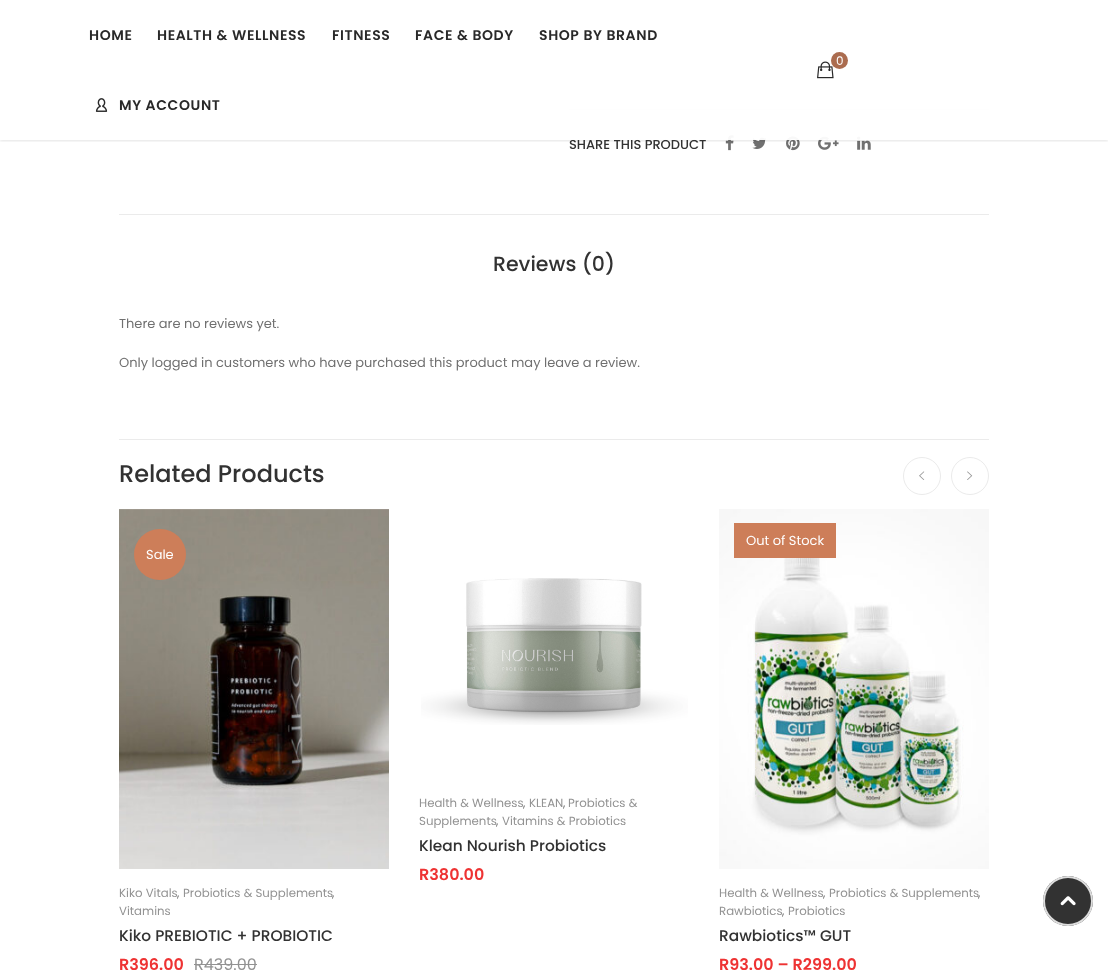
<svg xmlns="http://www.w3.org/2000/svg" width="1108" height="975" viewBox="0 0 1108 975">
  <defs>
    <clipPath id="clip1"><rect x="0" y="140" width="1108" height="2"/></clipPath>
  </defs>
  <rect width="100%" height="100%" fill="rgb(255,255,255)"/>
  <rect x="569" y="109" width="420" height="1" fill="rgb(235,235,235)"/>
  <image x="725" y="135" width="9" height="16" href="pic3.png"/>
  <image x="752" y="137" width="15" height="12" href="pic4.png"/>
  <image x="786" y="136" width="14" height="15" href="pic5.png"/>
  <image x="818" y="136" width="21" height="14" href="pic6.png"/>
  <image x="857" y="136" width="14" height="14" href="pic7.png"/>
  <g clip-path="url(#clip1)">
    <rect x="0" y="1" width="1108" height="140" fill="rgba(0,0,0,0.11)" filter="blur(1.5px)"/>
  </g>
  <text x="569" y="149" font-family="Poppins" font-size="13" font-weight="500" fill="rgb(50,50,50)">SHARE THIS PRODUCT</text>
  <rect x="569" y="109" width="420" height="31" fill="rgba(255,255,255,0.95)"/>
  <g font-family="Poppins" font-size="14" font-weight="600" letter-spacing="0.6" fill="rgb(41,41,41)">
    <text x="89" y="40">HOME</text>
    <text x="157" y="40">HEALTH &amp; WELLNESS</text>
    <text x="332" y="40">FITNESS</text>
    <text x="415" y="40">FACE &amp; BODY</text>
    <text x="539" y="40">SHOP BY BRAND</text>
  </g>
  <image x="95" y="98" width="13" height="14" href="pic1.png"/>
  <text x="119" y="110" font-family="Poppins" font-size="14" font-weight="600" letter-spacing="0.6" fill="rgb(41,41,41)">MY ACCOUNT</text>
  <image x="817" y="61" width="17" height="18" href="pic2.png"/>
  <circle cx="839.5" cy="60.5" r="8.5" fill="rgb(171,108,79)"/>
  <text x="836" y="65" font-family="Poppins" font-size="12" fill="rgb(255,255,255)">0</text>
  <rect x="119" y="214" width="870" height="1" fill="rgb(235,235,235)"/>
  <text x="493" y="271" font-family="Poppins" font-size="20.5" font-weight="500" fill="rgb(50,50,50)">Reviews (0)</text>
  <g font-family="Poppins" font-size="13" fill="rgb(112,112,112)">
    <text x="119" y="328">There are no reviews yet.</text>
    <text x="119" y="367">Only logged in customers who have purchased this product may leave a review.</text>
  </g>
  <rect x="119" y="439" width="870" height="1" fill="rgb(235,235,235)"/>
  <text x="119" y="482" font-family="Poppins" font-size="24" font-weight="500" fill="rgb(50,50,50)">Related Products</text>
  <circle cx="922" cy="476" r="18.5" fill="none" stroke="rgb(235,235,235)"/>
  <image x="919" y="471" width="6" height="9" href="pic8.png"/>
  <circle cx="970" cy="476" r="18.5" fill="none" stroke="rgb(235,235,235)"/>
  <image x="967" y="471" width="6" height="9" href="pic9.png"/>
  <image x="119" y="509" width="270" height="360" href="pic10.png"/>
  <rect x="134" y="529" width="52" height="51" rx="25.5" fill="rgb(205,126,89)"/>
  <text x="146" y="559" font-family="Poppins" font-size="13" fill="rgb(255,255,255)">Sale</text>
  <text x="119" y="897" font-family="Poppins" font-size="11.75" fill="rgb(146,146,146)">Kiko Vitals</text>
  <text x="177" y="897" font-family="Poppins" font-size="11.75" fill="rgb(112,112,112)">,</text>
  <text x="183" y="897" font-family="Poppins" font-size="11.75" fill="rgb(146,146,146)">Probiotics &amp; Supplements</text>
  <text x="332" y="897" font-family="Poppins" font-size="11.75" fill="rgb(112,112,112)">,</text>
  <text x="119" y="915" font-family="Poppins" font-size="11.75" fill="rgb(146,146,146)">Vitamins</text>
  <text x="119" y="941" font-family="Poppins" font-size="15.4" font-weight="500" fill="rgb(50,50,50)">Kiko PREBIOTIC + PROBIOTIC</text>
  <text x="119" y="970" font-family="Poppins" font-size="16" font-weight="600" fill="rgb(238,51,51)">R396.00</text>
  <text x="194" y="970" font-family="Poppins" font-size="16" fill="rgb(146,146,146)">R439.00</text>
  <rect x="194" y="964" width="63" height="1" fill="rgb(146,146,146)"/>
  <image x="421" y="578" width="267" height="147" href="pic11.png"/>
  <text x="419" y="807" font-family="Poppins" font-size="11.75" fill="rgb(146,146,146)">Health &amp; Wellness</text>
  <text x="523" y="807" font-family="Poppins" font-size="11.75" fill="rgb(112,112,112)">,</text>
  <text x="529" y="807" font-family="Poppins" font-size="11.75" fill="rgb(146,146,146)">KLEAN</text>
  <text x="563" y="807" font-family="Poppins" font-size="11.75" fill="rgb(112,112,112)">,</text>
  <g font-family="Poppins" font-size="11.75" fill="rgb(146,146,146)">
    <text x="568" y="807">Probiotics &amp;</text>
    <text x="419" y="825">Supplements</text>
  </g>
  <text x="496" y="825" font-family="Poppins" font-size="11.75" fill="rgb(112,112,112)">,</text>
  <text x="502" y="825" font-family="Poppins" font-size="11.75" fill="rgb(146,146,146)">Vitamins &amp; Probiotics</text>
  <text x="419" y="851" font-family="Poppins" font-size="15.4" font-weight="500" fill="rgb(50,50,50)">Klean Nourish Probiotics</text>
  <text x="419" y="880" font-family="Poppins" font-size="16" font-weight="600" fill="rgb(238,51,51)">R380.00</text>
  <image x="719" y="509" width="270" height="360" href="pic12.png"/>
  <rect x="734" y="523" width="102" height="35" fill="rgb(205,126,89)"/>
  <text x="746" y="545" font-family="Poppins" font-size="13" fill="rgb(255,255,255)">Out of Stock</text>
  <text x="719" y="897" font-family="Poppins" font-size="11.75" fill="rgb(146,146,146)">Health &amp; Wellness</text>
  <text x="823" y="897" font-family="Poppins" font-size="11.75" fill="rgb(112,112,112)">,</text>
  <text x="829" y="897" font-family="Poppins" font-size="11.75" fill="rgb(146,146,146)">Probiotics &amp; Supplements</text>
  <text x="978" y="897" font-family="Poppins" font-size="11.75" fill="rgb(112,112,112)">,</text>
  <text x="719" y="915" font-family="Poppins" font-size="11.75" fill="rgb(146,146,146)">Rawbiotics</text>
  <text x="782" y="915" font-family="Poppins" font-size="11.75" fill="rgb(112,112,112)">,</text>
  <text x="788" y="915" font-family="Poppins" font-size="11.75" fill="rgb(146,146,146)">Probiotics</text>
  <text x="719" y="941" font-family="Poppins" font-size="15.4" font-weight="500" fill="rgb(50,50,50)">Rawbiotics™ GUT</text>
  <text x="719" y="970" font-family="Poppins" font-size="16" font-weight="600" fill="rgb(238,51,51)">R93.00 – R299.00</text>
  <circle cx="1068" cy="901" r="25" fill="rgb(50,50,50)"/>
  <image x="1060" y="896" width="16" height="10" href="pic13.png"/>
  <circle cx="1068" cy="901" r="24" fill="none" stroke="rgb(221,221,221)" stroke-width="2"/>
</svg>
